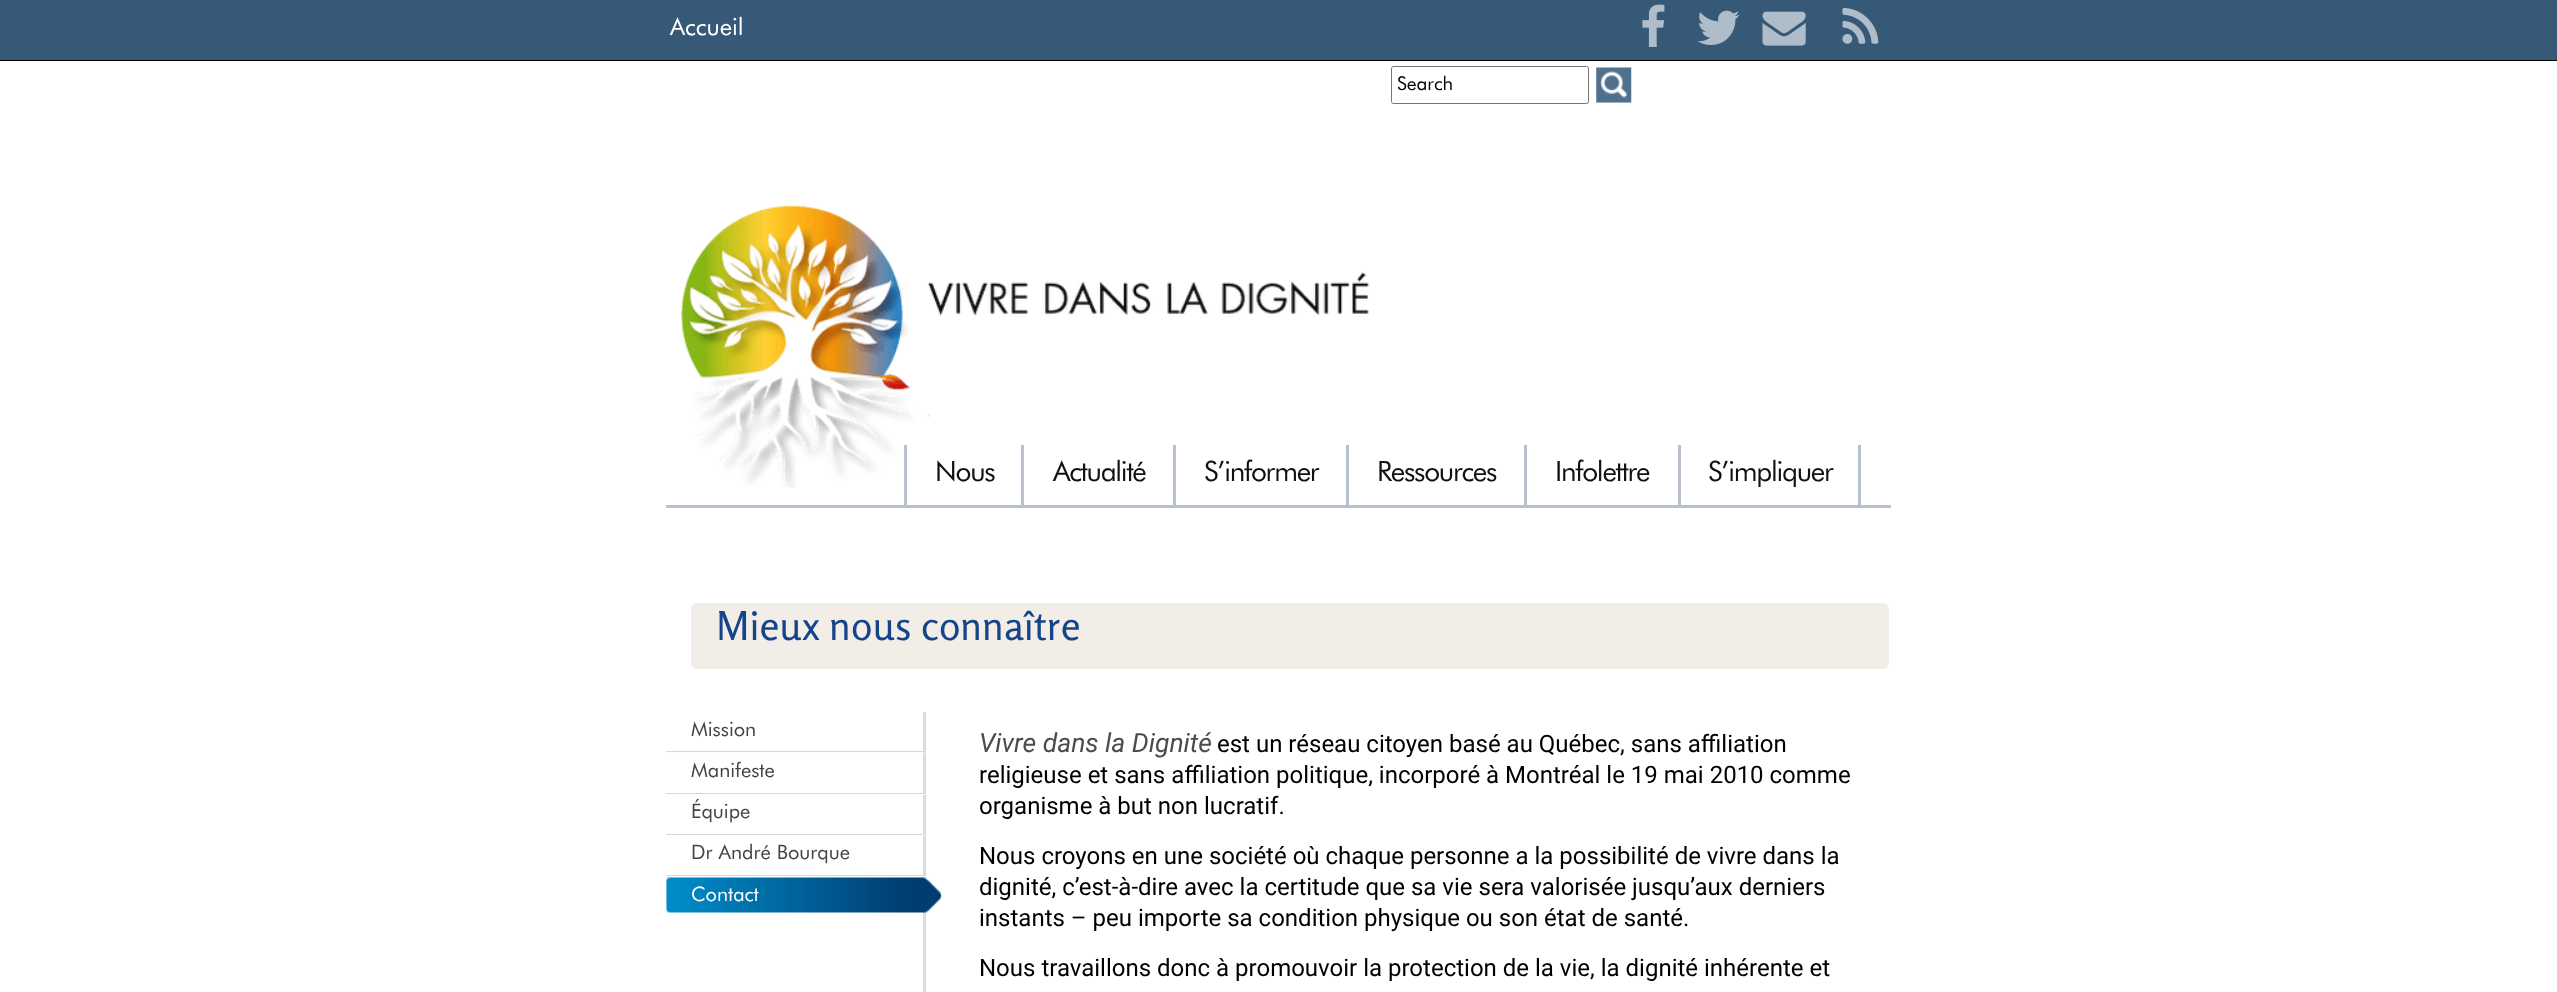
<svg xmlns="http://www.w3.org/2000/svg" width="2557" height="992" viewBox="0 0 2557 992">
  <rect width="100%" height="100%" fill="rgb(255,255,255)"/>
  <rect x="0" y="0" width="2557" height="60" fill="rgb(55,89,120)"/>
  <text x="670" y="35" font-family="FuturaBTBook" font-size="24" fill="rgb(255,255,255)">Accueil</text>
  <image x="1642" y="4" width="23" height="43" href="pic1.png"/>
  <image x="1697" y="10" width="43" height="35" href="pic2.png"/>
  <image x="1762" y="11" width="44" height="35" href="pic3.png"/>
  <image x="1842" y="7" width="37" height="37" href="pic4.png"/>
  <rect x="1391.5" y="66.5" width="197" height="37" rx="2" fill="none" stroke="rgb(118,118,118)"/>
  <text x="1397" y="90" font-family="FuturaBTBook" font-size="19" fill="rgb(0,0,0)">Search</text>
  <rect x="1596" y="68" width="35" height="35" fill="rgb(239,239,239)"/>
  <image x="1596" y="67" width="36" height="36" href="pic5.png"/>
  <rect x="0" y="60" width="2557" height="1" fill="rgb(0,0,0)"/>
  <image x="681" y="205" width="688" height="283" href="pic6.png"/>
  <rect x="666" y="505" width="1225" height="3" fill="rgb(182,192,206)"/>
  <rect x="904" y="445" width="3" height="60" fill="rgb(182,192,206)"/>
  <text x="935" y="481" font-family="FuturaBTBook" font-size="28" letter-spacing="-1.25" fill="rgb(17,17,17)">Nous</text>
  <rect x="1021" y="445" width="3" height="60" fill="rgb(182,192,206)"/>
  <text x="1053" y="481" font-family="FuturaBTBook" font-size="28" letter-spacing="-1.25" fill="rgb(17,17,17)">Actualité</text>
  <rect x="1173" y="445" width="3" height="60" fill="rgb(182,192,206)"/>
  <text x="1204" y="481" font-family="FuturaBTBook" font-size="28" letter-spacing="-1.25" fill="rgb(17,17,17)">S’informer</text>
  <rect x="1346" y="445" width="3" height="60" fill="rgb(182,192,206)"/>
  <text x="1377" y="481" font-family="FuturaBTBook" font-size="28" letter-spacing="-1.25" fill="rgb(17,17,17)">Ressources</text>
  <rect x="1524" y="445" width="3" height="60" fill="rgb(182,192,206)"/>
  <text x="1555" y="481" font-family="FuturaBTBook" font-size="28" letter-spacing="-1.25" fill="rgb(17,17,17)">Infolettre</text>
  <rect x="1858" y="445" width="3" height="60" fill="rgb(182,192,206)"/>
  <rect x="1678" y="445" width="3" height="60" fill="rgb(182,192,206)"/>
  <text x="1708" y="481" font-family="FuturaBTBook" font-size="28" letter-spacing="-1.25" fill="rgb(17,17,17)">S’impliquer</text>
  <rect x="691" y="603" width="1198" height="66" rx="6" fill="rgb(242,238,231)"/>
  <text x="716" y="640" font-family="Rosario" font-size="40" fill="rgb(21,68,138)">Mieux nous connaître</text>
  <rect x="923" y="712" width="3" height="280" fill="rgb(220,220,219)"/>
  <rect x="666" y="753" width="259" height="1" fill="rgb(254,254,252)"/>
  <text x="691" y="736" font-family="FuturaBTBook" font-size="20" fill="rgb(68,68,68)">Mission</text>
  <rect x="666" y="751" width="259" height="1" fill="rgb(216,216,214)"/>
  <rect x="666" y="794" width="259" height="1" fill="rgb(254,254,252)"/>
  <text x="691" y="777" font-family="FuturaBTBook" font-size="20" fill="rgb(68,68,68)">Manifeste</text>
  <rect x="666" y="793" width="259" height="1" fill="rgb(216,216,214)"/>
  <rect x="666" y="835" width="259" height="1" fill="rgb(254,254,252)"/>
  <text x="691" y="818" font-family="FuturaBTBook" font-size="20" fill="rgb(68,68,68)">Équipe</text>
  <rect x="666" y="834" width="259" height="1" fill="rgb(216,216,214)"/>
  <rect x="666" y="876" width="259" height="1" fill="rgb(254,254,252)"/>
  <text x="691" y="859" font-family="FuturaBTBook" font-size="20" fill="rgb(68,68,68)">Dr André Bourque</text>
  <rect x="666" y="875" width="259" height="1" fill="rgb(216,216,214)"/>
  <image x="666" y="877" width="276" height="36" href="pic7.png"/>
  <text x="691" y="901" font-family="FuturaBTBook" font-size="20" fill="rgb(255,255,255)">Contact</text>
  <text x="979" y="752" font-family="Roboto" font-size="26.5" font-style="italic" fill="rgb(76,76,76)">Vivre dans la Dignité</text>
  <g font-family="Roboto" font-size="24" fill="rgb(0,0,0)">
    <text x="1217" y="752">est un réseau citoyen basé au Québec, sans affiliation</text>
    <text>
      <tspan x="979" y="783">religieuse et sans affiliation politique, incorporé à Montréal le 19 mai 2010 comme</tspan>
      <tspan x="979" y="814">organisme à but non lucratif.</tspan>
    </text>
    <text>
      <tspan x="979" y="864">Nous croyons en une société où chaque personne a la possibilité de vivre dans la</tspan>
      <tspan x="979" y="895">dignité, c’est-à-dire avec la certitude que sa vie sera valorisée jusqu’aux derniers</tspan>
      <tspan x="979" y="926">instants – peu importe sa condition physique ou son état de santé.</tspan>
    </text>
    <text x="979" y="976">Nous travaillons donc à promouvoir la protection de la vie, la dignité inhérente et</text>
  </g>
</svg>
